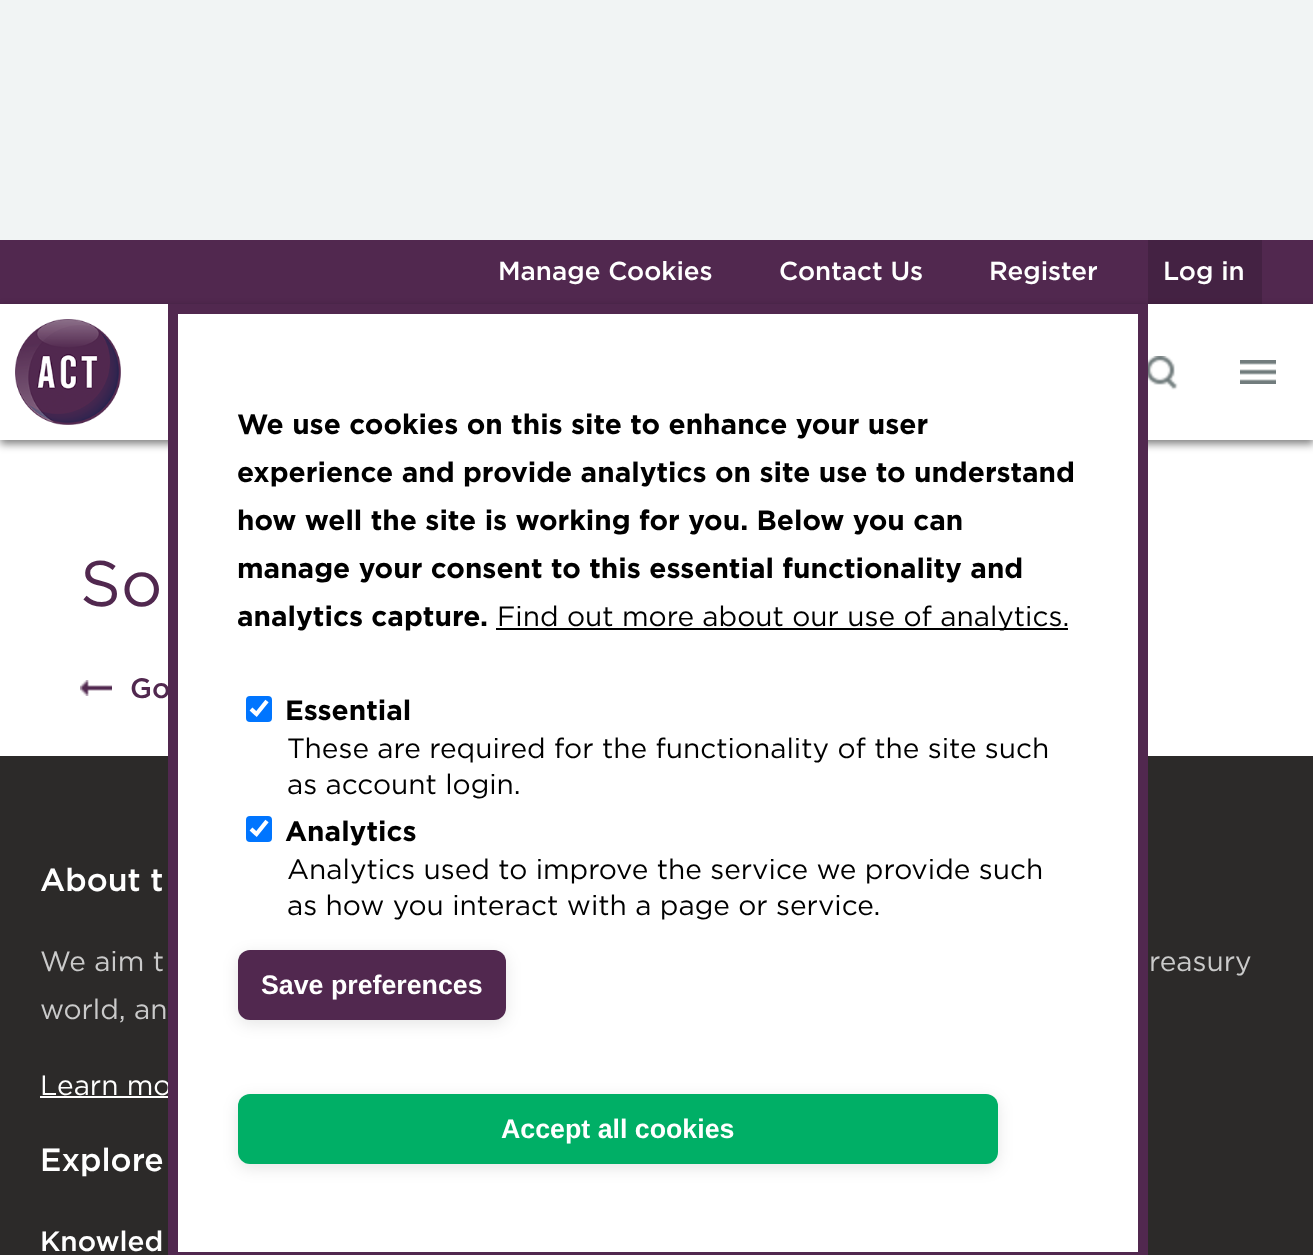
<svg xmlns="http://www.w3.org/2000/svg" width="1313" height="1255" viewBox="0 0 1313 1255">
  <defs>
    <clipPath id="clip1"><path d="M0 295H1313V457H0ZM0 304H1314V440H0Z" clip-rule="evenodd"/></clipPath>
  </defs>
  <rect width="100%" height="100%" fill="rgb(255,255,255)"/>
  <rect x="0" y="0" width="1313" height="240" fill="rgb(241,244,244)"/>
  <rect x="0" y="240" width="1313" height="64" fill="rgb(81,40,79)"/>
  <g font-family="'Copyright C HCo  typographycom'" font-size="26" font-weight="300" fill="rgb(255,255,255)">
    <text x="498" y="280">Manage Cookies</text>
    <text x="779" y="280">Contact Us</text>
    <text x="989" y="280">Register</text>
  </g>
  <g clip-path="url(#clip1)">
    <rect x="0" y="308" width="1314" height="136" fill="rgba(0,0,0,0.5)" filter="blur(4px)"/>
  </g>
  <rect x="1148" y="240" width="114" height="64" fill="rgba(0,0,0,0.15)"/>
  <text x="1163" y="280" font-family="'Copyright C HCo  typographycom'" font-size="26" font-weight="300" fill="rgb(255,255,255)">Log in</text>
  <image x="15" y="319" width="106" height="106" href="pic1.png"/>
  <image x="1148" y="356" width="30" height="34" href="pic2.png"/>
  <image x="1240" y="360" width="36" height="24" href="pic3.png"/>
  <text x="80" y="606" font-family="'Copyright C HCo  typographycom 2'" font-size="64" font-weight="300" fill="rgb(81,40,79)">So</text>
  <image x="80" y="680" width="32" height="16" href="pic4.png"/>
  <text x="130" y="698" font-family="'Copyright C HCo  typographycom'" font-size="28" font-weight="300" fill="rgb(81,40,79)">Go</text>
  <rect x="0" y="756" width="1313" height="499" fill="rgb(44,42,41)"/>
  <rect x="178" y="440" width="960" height="812" fill="rgb(255,255,255)"/>
  <text x="40" y="1095" font-family="'Copyright C HCo  typographycom 2'" font-size="28" font-weight="300" fill="rgb(255,255,255)">Learn mo</text>
  <rect x="173" y="309" width="970" height="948" fill="none" stroke="rgb(81,40,79)" stroke-width="10"/>
  <g font-family="'Copyright C HCo  typographycom'" font-size="28" fill="rgb(0,0,0)">
    <text>
      <tspan x="237" y="434">We use cookies on this site to enhance your user</tspan>
      <tspan x="237" y="482">experience and provide analytics on site use to understand</tspan>
      <tspan x="237" y="530">how well the site is working for you. Below you can</tspan>
      <tspan x="237" y="578">manage your consent to this essential functionality and</tspan>
      <tspan x="237" y="626">analytics capture.</tspan>
    </text>
  </g>
  <rect x="496" y="628" width="572" height="2" fill="rgb(0,0,0)"/>
  <text x="497" y="626" font-family="'Copyright C HCo  typographycom 2'" font-size="28" font-weight="300" fill="rgb(0,0,0)">Find out more about our use of analytics.</text>
  <rect x="246" y="696" width="26" height="26" rx="4" fill="rgb(0,117,255)"/>
  <path d="M251 709L256.5 714L267 701" fill="none" stroke="rgb(255,255,255)" stroke-width="4.2"/>
  <text x="285" y="720" font-family="'Copyright C HCo  typographycom'" font-size="28" fill="rgb(0,0,0)">Essential</text>
  <g font-family="'Copyright C HCo  typographycom 2'" font-size="28" font-weight="300" fill="rgb(0,0,0)">
    <text>
      <tspan x="287" y="758">These are required for the functionality of the site such</tspan>
      <tspan x="287" y="794">as account login.</tspan>
    </text>
  </g>
  <rect x="246" y="816" width="26" height="26" rx="4" fill="rgb(0,117,255)"/>
  <path d="M251 829L256.5 834L267 821" fill="none" stroke="rgb(255,255,255)" stroke-width="4.2"/>
  <text x="285" y="841" font-family="'Copyright C HCo  typographycom'" font-size="28" fill="rgb(0,0,0)">Analytics</text>
  <g font-family="'Copyright C HCo  typographycom 2'" font-size="28" font-weight="300" fill="rgb(0,0,0)">
    <text>
      <tspan x="287" y="879">Analytics used to improve the service we provide such</tspan>
      <tspan x="287" y="915">as how you interact with a page or service.</tspan>
    </text>
  </g>
  <rect x="238" y="954" width="268" height="70" rx="12" fill="rgba(0,0,0,0.1)" filter="blur(8px)"/>
  <rect x="238" y="950" width="268" height="70" rx="12" fill="rgb(81,40,79)"/>
  <text x="261" y="994" font-family="Liberation Sans" font-size="26.75" font-weight="bold" fill="rgb(255,255,255)">Save preferences</text>
  <rect x="238" y="1098" width="760" height="70" rx="12" fill="rgba(0,0,0,0.1)" filter="blur(8px)"/>
  <rect x="238" y="1094" width="760" height="70" rx="12" fill="rgb(0,175,102)"/>
  <text x="501" y="1138" font-family="Liberation Sans" font-size="26.75" font-weight="bold" fill="rgb(255,255,255)">Accept all cookies</text>
  <text x="40" y="891" font-family="'Copyright C HCo  typographycom'" font-size="32" font-weight="300" fill="rgb(255,255,255)">About t</text>
  <g font-family="'Copyright C HCo  typographycom 2'" font-size="28" font-weight="300" fill="rgb(202,202,202)">
    <text x="40" y="971">We aim t</text>
    <text x="1149" y="971">reasury</text>
    <text x="40" y="1019">world, an</text>
  </g>
  <rect x="40" y="1096" width="128" height="2" fill="rgb(255,255,255)"/>
  <text x="40" y="1171" font-family="'Copyright C HCo  typographycom'" font-size="32" font-weight="300" fill="rgb(255,255,255)">Explore</text>
  <text x="40" y="1251" font-family="'Copyright C HCo  typographycom'" font-size="28" font-weight="300" fill="rgb(255,255,255)">Knowled</text>
</svg>
